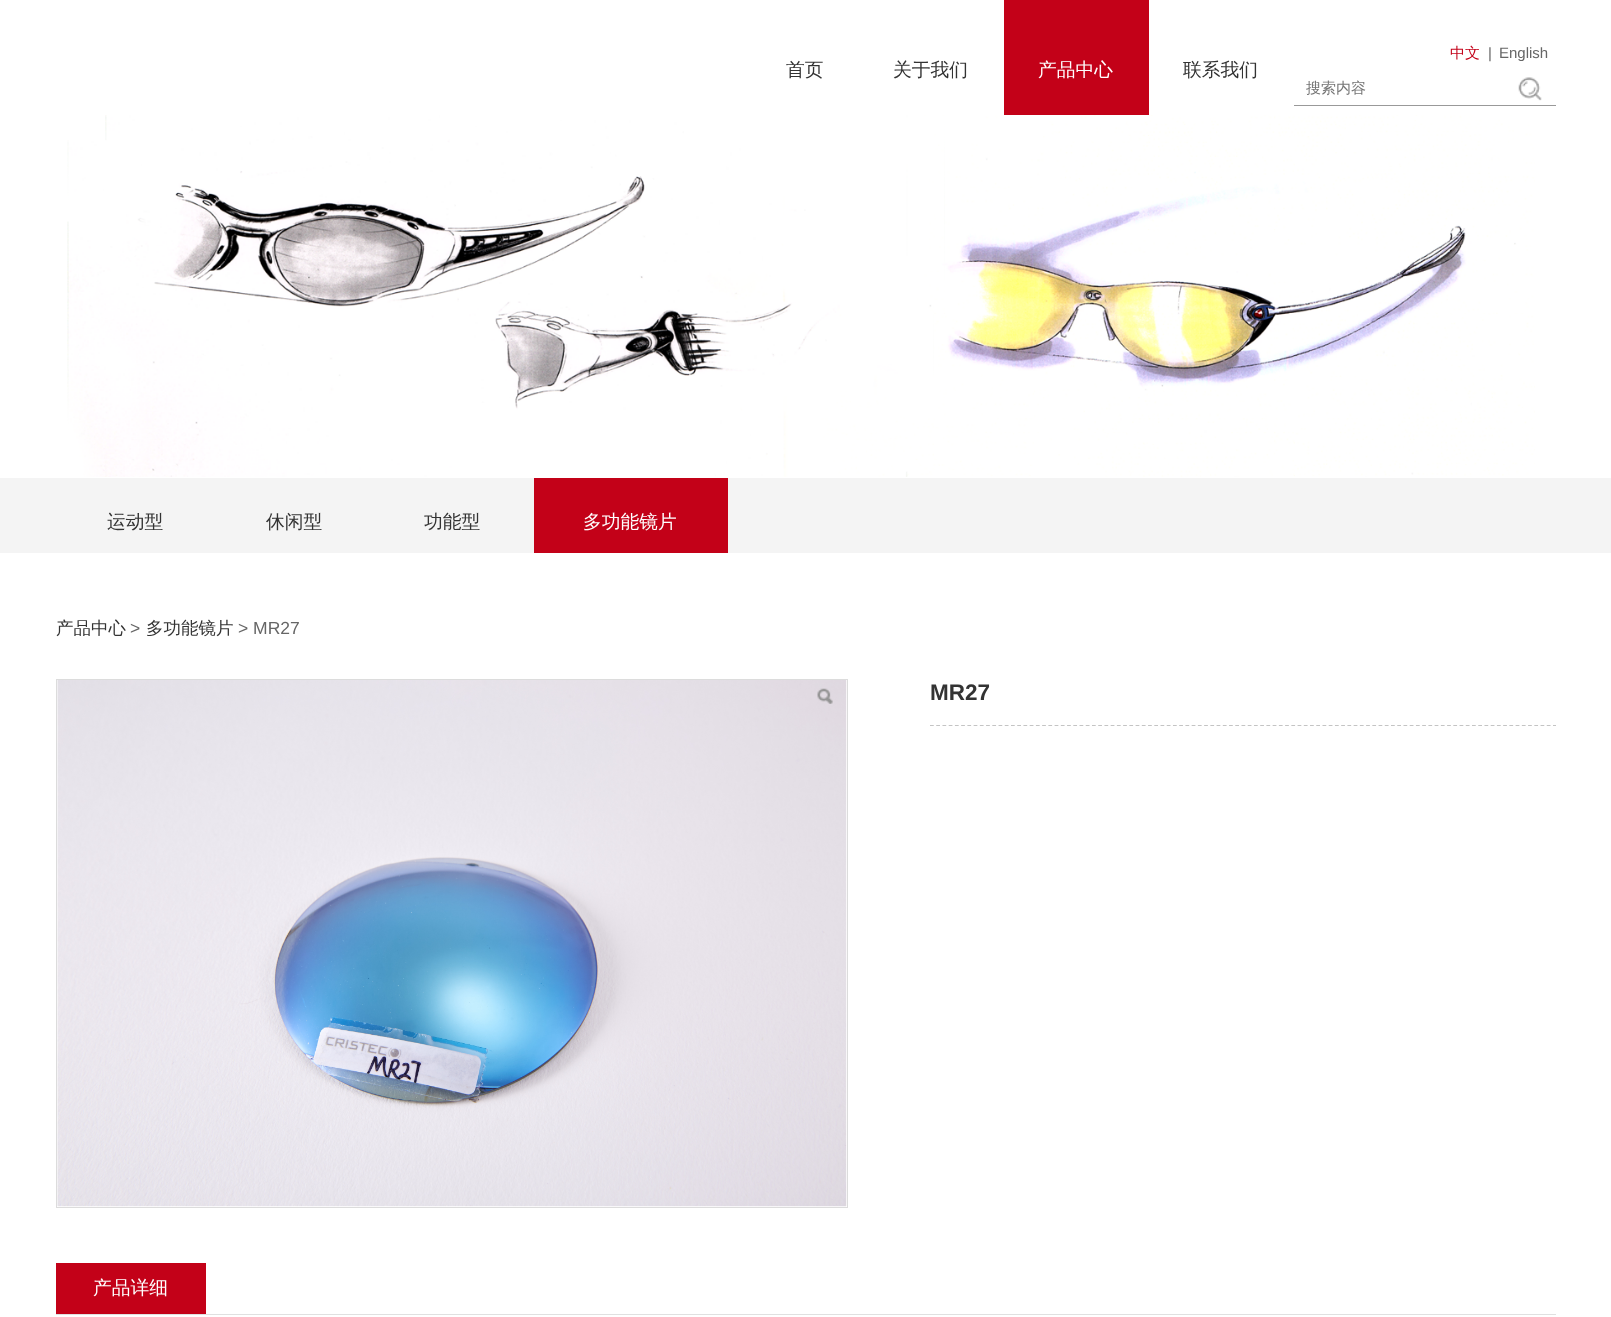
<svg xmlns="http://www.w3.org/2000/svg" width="1611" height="1317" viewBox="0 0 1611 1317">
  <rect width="100%" height="100%" fill="rgb(255,255,255)"/>
  <g font-family="WenQuanYi Zen Hei" font-size="18.75" font-weight="500" fill="rgb(51,51,51)">
    <text x="786" y="76">首页</text>
    <text x="893" y="76">关于我们</text>
  </g>
  <rect x="1004" y="0" width="145" height="115" fill="rgb(195,1,24)"/>
  <text x="1038" y="76" font-family="WenQuanYi Zen Hei" font-size="18.75" font-weight="500" fill="rgb(255,255,255)">产品中心</text>
  <text x="1183" y="76" font-family="WenQuanYi Zen Hei" font-size="18.75" font-weight="500" fill="rgb(51,51,51)">联系我们</text>
  <text x="1450" y="58" font-family="WenQuanYi Zen Hei" font-size="15" font-weight="500" fill="rgb(195,1,24)">中文</text>
  <g font-family="Liberation Sans" font-size="15" fill="rgb(102,102,102)">
    <text x="1488" y="58">|</text>
    <text x="1499" y="58">English</text>
  </g>
  <rect x="1294" y="105" width="262" height="1" fill="rgb(153,153,153)"/>
  <text x="1306" y="93" font-family="WenQuanYi Zen Hei" font-size="15" font-weight="500" fill="rgb(117,117,117)">搜索内容</text>
  <image x="1518" y="77" width="24" height="24" href="pic1.png"/>
  <image x="67" y="115" width="1468" height="362" href="pic2.png"/>
  <rect x="0" y="478" width="1611" height="75" fill="rgb(244,244,244)"/>
  <g font-family="WenQuanYi Zen Hei" font-size="18.75" font-weight="500" fill="rgb(51,51,51)">
    <text x="107" y="528">运动型</text>
    <text x="266" y="528">休闲型</text>
    <text x="424" y="528">功能型</text>
  </g>
  <rect x="534" y="478" width="194" height="75" fill="rgb(195,1,24)"/>
  <text x="583" y="528" font-family="WenQuanYi Zen Hei" font-size="18.75" font-weight="500" fill="rgb(255,255,255)">多功能镜片</text>
  <text x="56" y="634" font-family="WenQuanYi Zen Hei" font-size="17.5" font-weight="500" fill="rgb(51,51,51)">产品中心</text>
  <text x="130" y="634" font-family="Liberation Sans" font-size="17.5" fill="rgb(102,102,102)">&gt;</text>
  <text x="146" y="634" font-family="WenQuanYi Zen Hei" font-size="17.5" font-weight="500" fill="rgb(51,51,51)">多功能镜片</text>
  <text x="238" y="634" font-family="Liberation Sans" font-size="17.5" fill="rgb(102,102,102)">&gt; MR27</text>
  <rect x="56.5" y="679.5" width="791" height="528" fill="none" stroke="rgb(220,220,220)"/>
  <image x="57" y="680" width="790" height="527" href="pic3.png"/>
  <image x="817" y="688" width="16" height="16" href="pic4.png"/>
  <path d="M930 725.5H1556" fill="none" stroke="rgb(196,196,196)" stroke-width="1.2" stroke-dasharray="3.75 2.48"/>
  <text x="930" y="700" font-family="Liberation Sans" font-size="22.5" font-weight="bold" fill="rgb(51,51,51)">MR27</text>
  <rect x="56" y="1314" width="1500" height="1" fill="rgb(224,224,224)"/>
  <rect x="56" y="1263" width="150" height="51" fill="rgb(195,1,24)"/>
  <text x="93" y="1294" font-family="WenQuanYi Zen Hei" font-size="18.75" font-weight="500" fill="rgb(255,255,255)">产品详细</text>
</svg>
